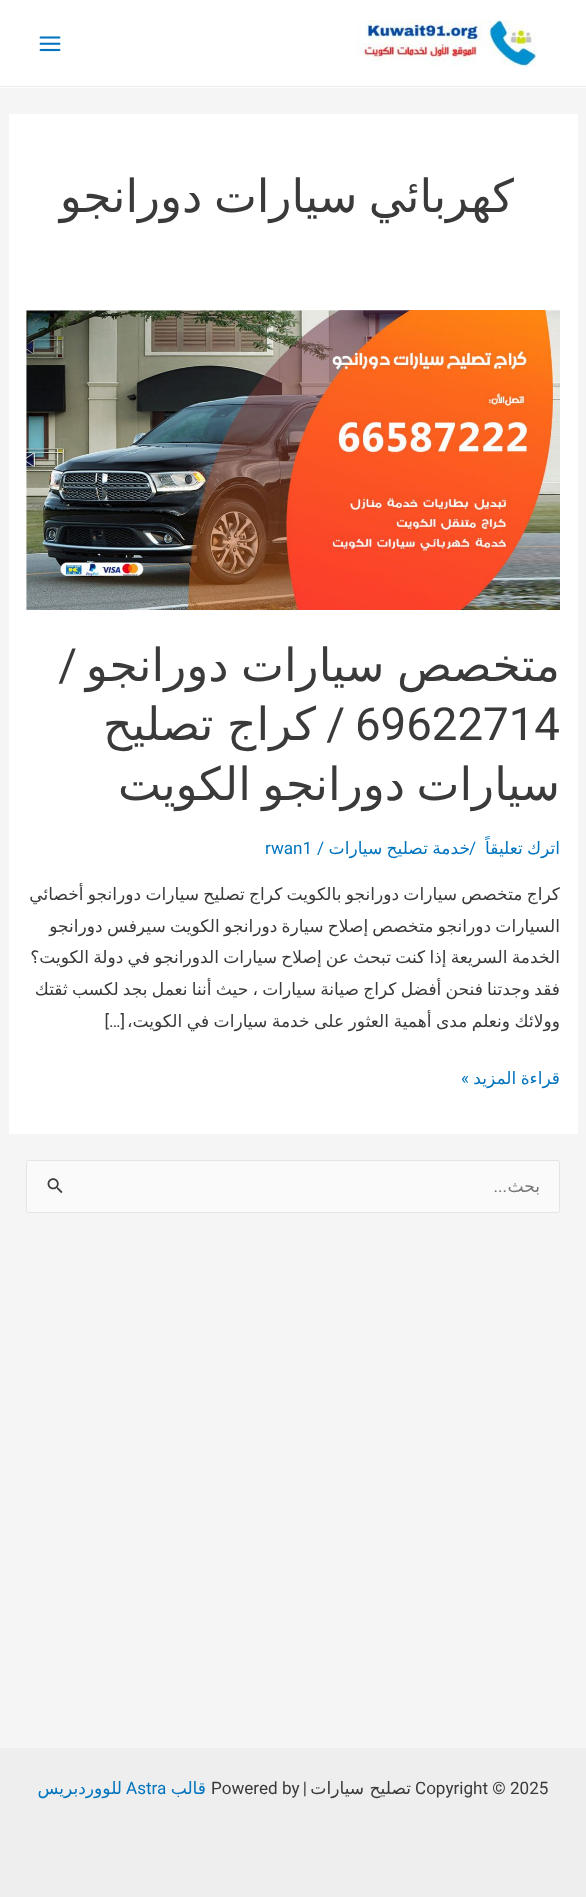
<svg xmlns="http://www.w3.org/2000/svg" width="586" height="1897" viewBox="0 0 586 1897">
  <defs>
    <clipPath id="clip1"><rect x="26" y="310" width="534" height="799"/></clipPath>
  </defs>
  <rect width="100%" height="100%" fill="rgb(245,245,245)"/>
  <rect x="0" y="0" width="586" height="88" fill="rgb(255,255,255)"/>
  <rect x="0" y="86" width="586" height="1" fill="rgb(234,234,234)"/>
  <image x="356" y="20" width="181" height="47" href="pic1.png"/>
  <image x="39" y="36" width="22" height="16" href="pic2.png"/>
  <rect x="9" y="114" width="569" height="1020" fill="rgb(255,255,255)"/>
  <text x="514" y="212" word-spacing="-3" font-family="DejaVu Sans" font-size="45.6" direction="rtl" fill="rgb(58,58,58)">كهربائي سيارات دورانجو</text>
  <image x="26" y="310" width="534" height="300" href="pic3.png"/>
  <g clip-path="url(#clip1)">
    <text x="560" y="681" word-spacing="-2" font-family="DejaVu Sans" font-size="45.6" direction="rtl" fill="rgb(58,58,58)">متخصص سيارات دورانجو</text>
  </g>
  <text x="77" y="681" font-family="Roboto" font-size="45.6" direction="rtl" fill="rgb(58,58,58)">/</text>
  <text x="355" y="740" font-family="Roboto" font-size="45.6" fill="rgb(58,58,58)">69622714</text>
  <text x="345" y="740" font-family="Roboto" font-size="45.6" direction="rtl" fill="rgb(58,58,58)">/</text>
  <text x="316" y="740" word-spacing="-1" font-family="DejaVu Sans" font-size="45.6" direction="rtl" fill="rgb(58,58,58)">كراج تصليح</text>
  <g clip-path="url(#clip1)">
    <text x="560" y="800" word-spacing="-3" font-family="DejaVu Sans" font-size="45.6" direction="rtl" fill="rgb(58,58,58)">سيارات دورانجو الكويت</text>
  </g>
  <text x="560" y="854" word-spacing="-1.25" font-family="DejaVu Sans" font-size="17.1" direction="rtl" fill="rgb(2,116,190)">اترك تعليقاً</text>
  <text x="469" y="854" font-family="Roboto" font-size="17.1" fill="rgb(2,116,190)">/</text>
  <text x="470" y="854" word-spacing="-1.25" font-family="DejaVu Sans" font-size="17.1" direction="rtl" fill="rgb(2,116,190)">خدمة تصليح سيارات</text>
  <g font-family="Roboto" font-size="17.1" fill="rgb(2,116,190)">
    <text x="317" y="854">/</text>
    <text x="265" y="854">rwan1</text>
  </g>
  <g clip-path="url(#clip1)">
    <g font-family="DejaVu Sans" font-size="17.1" direction="rtl" fill="rgb(58,58,58)">
      <text>
        <tspan x="560" y="900" word-spacing="-1.25">كراج متخصص سيارات دورانجو بالكويت كراج تصليح سيارات دورانجو أخصائي</tspan>
        <tspan x="560" y="932" word-spacing="-1.25">السيارات دورانجو متخصص إصلاح سيارة دورانجو الكويت سيرفس دورانجو</tspan>
        <tspan x="560" y="963" word-spacing="-1.25">الخدمة السريعة إذا كنت تبحث عن إصلاح سيارات الدورانجو في دولة الكويت؟</tspan>
        <tspan x="560" y="995" word-spacing="-1.25">فقد وجدتنا فنحن أفضل كراج صيانة سيارات ، حيث أننا نعمل بجد لكسب ثقتك</tspan>
        <tspan x="560" y="1027" word-spacing="-1">وولائك ونعلم مدى أهمية العثور على خدمة سيارات في الكويت،</tspan>
      </text>
    </g>
  </g>
  <text x="125" y="1027" font-family="Roboto" font-size="17.1" direction="rtl" fill="rgb(58,58,58)">[…]</text>
  <text x="560" y="1084" word-spacing="-1" font-family="DejaVu Sans" font-size="17.1" direction="rtl" fill="rgb(2,116,190)">قراءة المزيد</text>
  <text x="469" y="1084" font-family="Roboto" font-size="17.1" direction="rtl" fill="rgb(2,116,190)">»</text>
  <rect x="26.5" y="1160.5" width="533" height="52" rx="2" fill="rgb(250,250,250)" stroke="rgb(229,229,229)"/>
  <text x="540" y="1192" font-family="DejaVu Sans" font-size="17.1" direction="rtl" fill="rgb(117,117,117)">بحث</text>
  <text x="507" y="1192" font-family="Roboto" font-size="17.1" direction="rtl" fill="rgb(117,117,117)">...</text>
  <image x="47" y="1178" width="16" height="16" href="pic4.png"/>
  <rect x="0" y="1748" width="586" height="149" fill="rgb(238,238,238)"/>
  <text x="415" y="1794" font-family="Roboto" font-size="17.1" fill="rgb(58,58,58)">Copyright © 2025</text>
  <text x="411" y="1794" font-family="DejaVu Sans" font-size="17.1" direction="rtl" fill="rgb(58,58,58)">تصليح سيارات</text>
  <text x="307" y="1794" font-family="Roboto" font-size="17.1" direction="rtl" fill="rgb(58,58,58)">|</text>
  <text x="211" y="1794" font-family="Roboto" font-size="17.1" fill="rgb(58,58,58)">Powered by</text>
  <text x="206" y="1794" font-family="DejaVu Sans" font-size="17.1" direction="rtl" fill="rgb(2,116,190)">قالب</text>
  <text x="126" y="1794" font-family="Roboto" font-size="17.1" fill="rgb(2,116,190)">Astra</text>
  <text x="122" y="1794" font-family="DejaVu Sans" font-size="17.1" direction="rtl" fill="rgb(2,116,190)">للووردبريس</text>
</svg>
